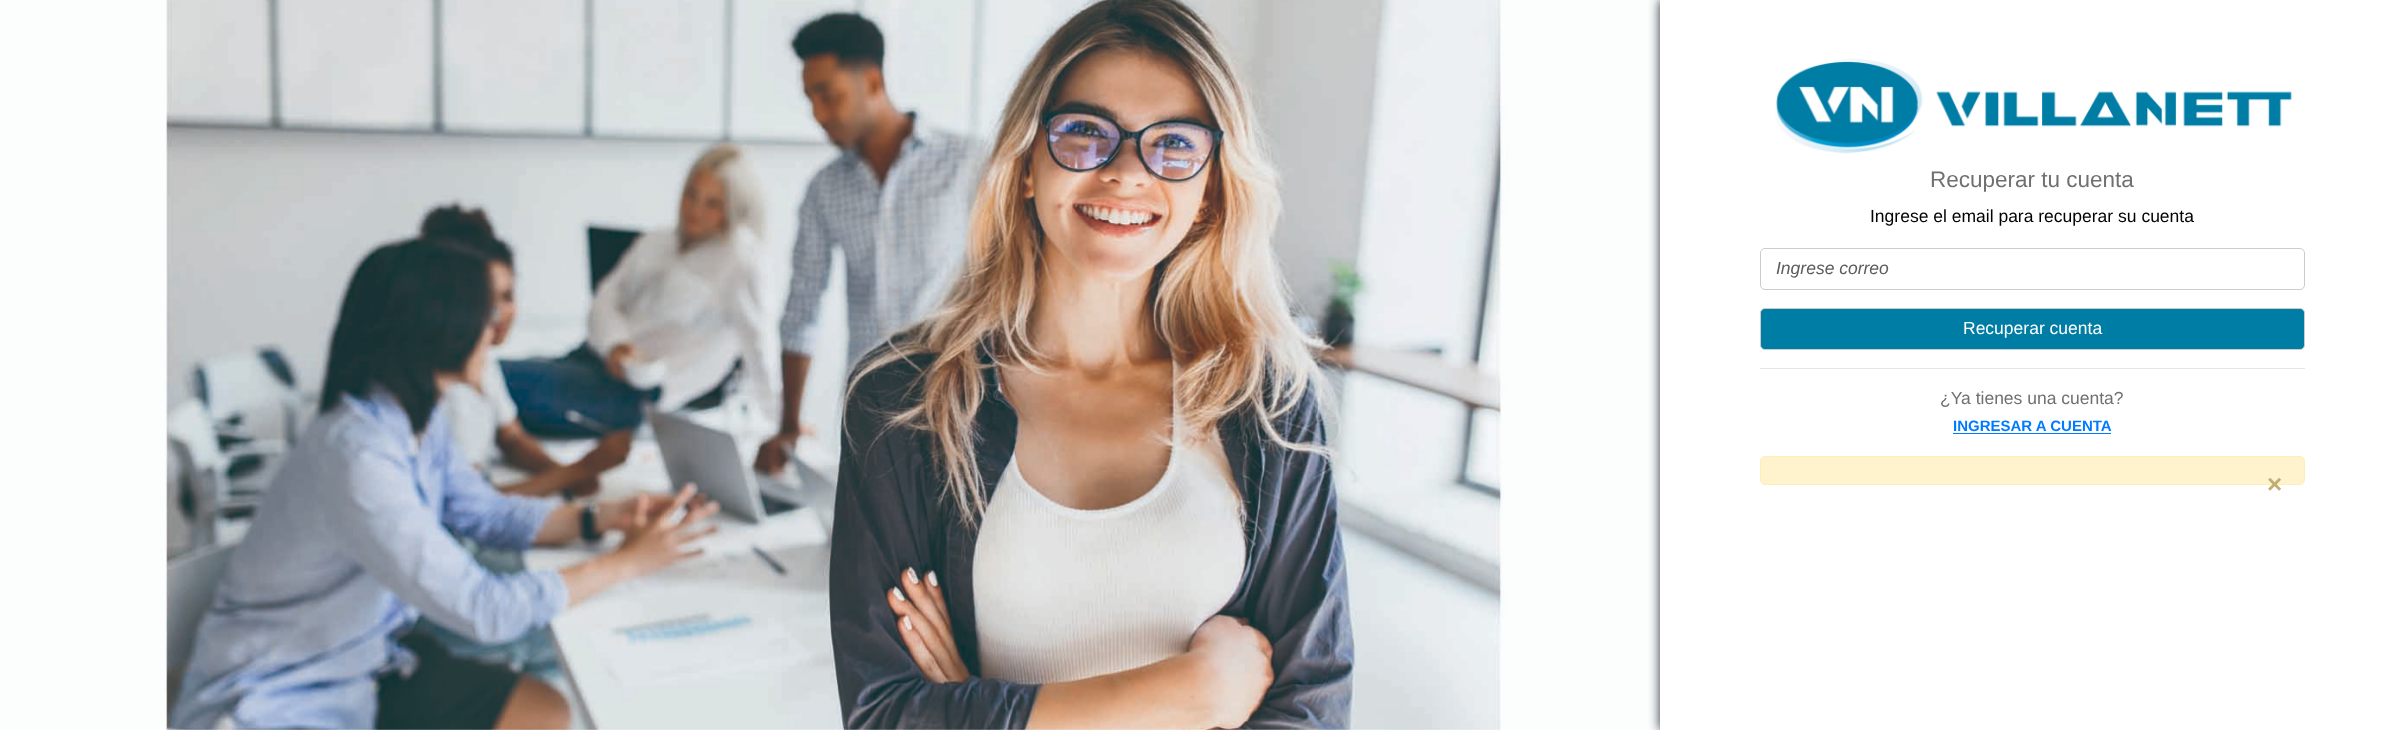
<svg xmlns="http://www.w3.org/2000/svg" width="2404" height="730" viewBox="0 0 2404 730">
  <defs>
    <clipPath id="clip1"><rect x="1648" y="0" width="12" height="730"/></clipPath>
  </defs>
  <rect width="100%" height="100%" fill="rgb(255,255,255)"/>
  <image x="0" y="0" width="1660" height="730" href="pic1.png"/>
  <g clip-path="url(#clip1)">
    <rect x="1660" y="0" width="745" height="730" fill="rgb(35,41,49)" filter="blur(6px)"/>
  </g>
  <image x="1775" y="58" width="517" height="96" href="pic2.png"/>
  <text x="1930" y="187" font-family="Liberation Sans" font-size="22.5" fill="rgb(112,112,112)">Recuperar tu cuenta</text>
  <text x="1870" y="222" font-family="Liberation Sans" font-size="17.5" fill="rgb(2,1,2)">Ingrese el email para recuperar su cuenta</text>
  <rect x="1760.5" y="248.5" width="544" height="41" rx="4.5" fill="none" stroke="rgb(204,204,204)"/>
  <text x="1776" y="274" font-family="Liberation Sans" font-size="17.5" font-style="italic" fill="rgb(92,92,92)">Ingrese correo</text>
  <rect x="1760.5" y="308.5" width="544" height="41" rx="4.5" fill="rgb(0,125,165)" stroke="rgb(204,204,204)"/>
  <text x="1963" y="334" font-family="Liberation Sans" font-size="17.5" fill="rgb(255,255,255)">Recuperar cuenta</text>
  <rect x="1760" y="368" width="545" height="1" fill="rgb(230,230,230)"/>
  <text x="1940" y="404" font-family="Liberation Sans" font-size="17.5" fill="rgb(112,112,112)">¿Ya tienes una cuenta?</text>
  <text x="1953" y="431" font-family="Liberation Sans" font-size="15" font-weight="bold" fill="rgb(0,123,255)">INGRESAR A CUENTA</text>
  <rect x="1953" y="433" width="158" height="1" fill="rgb(0,123,255)"/>
  <rect x="1760.5" y="456.5" width="544" height="28" rx="4.5" fill="rgb(255,243,205)" stroke="rgb(255,238,186)"/>
  <text x="2267" y="493" font-family="Liberation Sans" font-size="26" font-weight="bold" fill="rgb(194,174,115)">×</text>
</svg>
